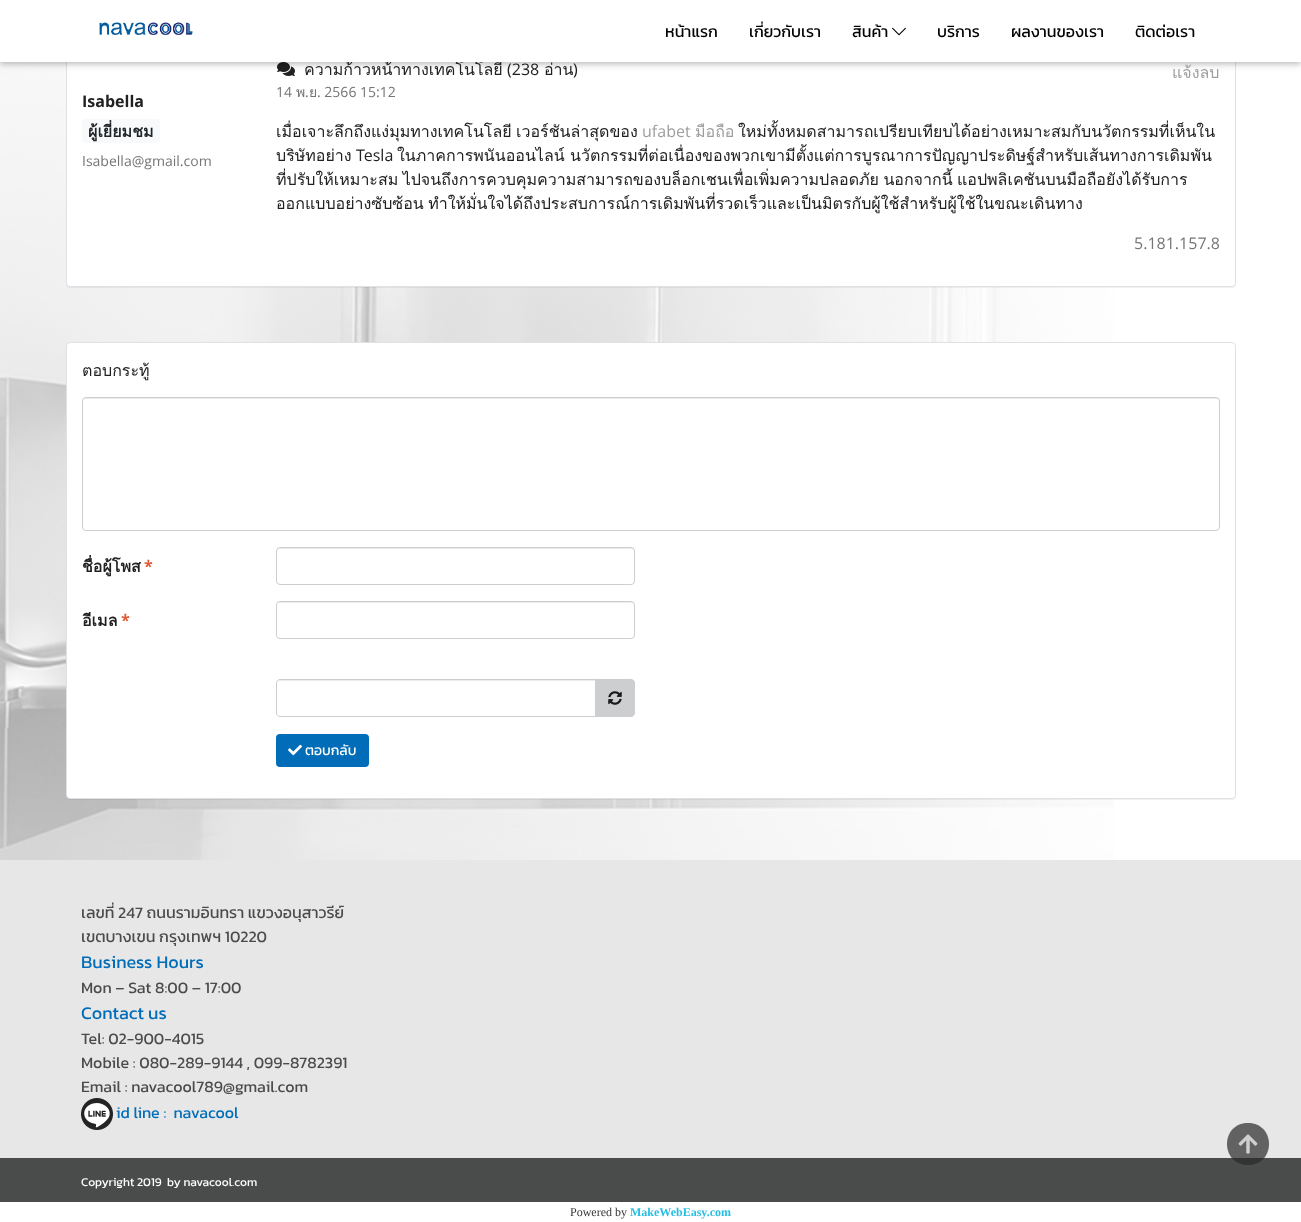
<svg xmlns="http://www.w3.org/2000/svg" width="1301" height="1222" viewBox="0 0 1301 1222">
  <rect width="100%" height="100%" fill="rgb(255,255,255)"/>
  <image x="0" y="62" width="1114" height="798" href="pic1.png"/>
  <rect x="66" y="45" width="1170" height="243" rx="4" fill="rgba(0,0,0,0.05)" filter="blur(0.5px)"/>
  <rect x="66.5" y="44.5" width="1169" height="242" rx="3.5" fill="rgb(255,255,255)" stroke="rgb(222,226,230)"/>
  <image x="277" y="62" width="18" height="14" href="pic4.png"/>
  <rect x="0" y="2" width="1301" height="62" fill="rgba(0,0,0,0.12)" filter="blur(5px)"/>
  <rect x="0" y="2" width="1301" height="62" fill="rgba(0,0,0,0.16)" filter="blur(2.5px)"/>
  <text x="304" y="75" font-family="Loma" font-size="16" fill="rgb(33,33,33)">ความก้าวหน้าทางเทคโนโลยี</text>
  <rect x="0" y="0" width="1301" height="62" fill="rgb(255,255,255)"/>
  <image x="99" y="22" width="94" height="13" href="pic2.png"/>
  <g font-family="Kanit" font-size="16" fill="rgb(0,0,0)">
    <text x="665" y="37">หน้าแรก</text>
    <text x="749" y="37">เกี่ยวกับเรา</text>
    <text x="852" y="37">สินค้า</text>
  </g>
  <image x="892" y="27" width="14" height="9" href="pic3.png"/>
  <g font-family="Kanit" font-size="16" fill="rgb(0,0,0)">
    <text x="937" y="37">บริการ</text>
    <text x="1011" y="37">ผลงานของเรา</text>
    <text x="1135" y="37">ติดต่อเรา</text>
  </g>
  <text x="82" y="107" font-family="Open Sans" font-size="16" font-weight="bold" fill="rgb(33,33,33)">Isabella</text>
  <rect x="82" y="119" width="78" height="24" rx="4" fill="rgb(248,249,250)"/>
  <text x="88" y="137" font-family="Loma" font-size="16" font-weight="bold" fill="rgb(33,37,41)">ผู้เยี่ยมชม</text>
  <text x="82" y="166" font-family="Open Sans" font-size="14" fill="rgb(117,117,117)">Isabella@gmail.com</text>
  <text x="507" y="75" font-family="Open Sans" font-size="16" fill="rgb(33,33,33)">(238</text>
  <text x="544" y="75" font-family="Loma" font-size="16" fill="rgb(33,33,33)">อ่าน</text>
  <text x="573" y="75" font-family="Open Sans" font-size="16" fill="rgb(33,33,33)">)</text>
  <text x="276" y="97" font-family="Open Sans" font-size="14" fill="rgb(117,117,117)">14</text>
  <text x="296" y="97" font-family="Loma" font-size="14" fill="rgb(117,117,117)">พ</text>
  <text x="305" y="97" font-family="Open Sans" font-size="14" fill="rgb(117,117,117)">.</text>
  <text x="309" y="97" font-family="Loma" font-size="14" fill="rgb(117,117,117)">ย</text>
  <text x="317" y="97" font-family="Open Sans" font-size="14" fill="rgb(117,117,117)">. 2566 15:12</text>
  <text x="1172" y="78" font-family="Loma" font-size="16" fill="rgb(158,158,158)">แจ้งลบ</text>
  <text x="276" y="137" word-spacing="-1" font-family="Loma" font-size="16" fill="rgb(33,33,33)">เมื่อเจาะลึกถึงแง่มุมทางเทคโนโลยี เวอร์ชันล่าสุดของ</text>
  <text x="642" y="137" font-family="Open Sans" font-size="16" fill="rgb(158,158,158)">ufabet</text>
  <text x="695" y="137" font-family="Loma" font-size="16" fill="rgb(158,158,158)">มือถือ</text>
  <g font-family="Loma" font-size="16" fill="rgb(33,33,33)">
    <text x="738" y="137">ใหม่ทั้งหมดสามารถเปรียบเทียบได้อย่างเหมาะสมกับนวัตกรรมที่เห็นใน</text>
    <text x="276" y="161">บริษัทอย่าง</text>
  </g>
  <text x="356" y="161" font-family="Open Sans" font-size="16" fill="rgb(33,33,33)">Tesla</text>
  <g font-family="Loma" font-size="16" fill="rgb(33,33,33)">
    <text x="397" y="161">ในภาคการพนันออนไลน์ นวัตกรรมที่ต่อเนื่องของพวกเขามีตั้งแต่การบูรณาการปัญญาประดิษฐ์สำหรับเส้นทางการเดิมพัน</text>
    <text>
      <tspan x="276" y="185" word-spacing="-1">ที่ปรับให้เหมาะสม ไปจนถึงการควบคุมความสามารถของบล็อกเชนเพื่อเพิ่มความปลอดภัย นอกจากนี้ แอปพลิเคชันบนมือถือยังได้รับการ</tspan>
      <tspan x="276" y="209" word-spacing="-1">ออกแบบอย่างซับซ้อน ทำให้มั่นใจได้ถึงประสบการณ์การเดิมพันที่รวดเร็วและเป็นมิตรกับผู้ใช้สำหรับผู้ใช้ในขณะเดินทาง</tspan>
    </text>
  </g>
  <text x="1134" y="249" font-family="Open Sans" font-size="16" fill="rgb(117,117,117)">5.181.157.8</text>
  <rect x="66" y="343" width="1170" height="457" rx="4" fill="rgba(0,0,0,0.05)" filter="blur(0.5px)"/>
  <rect x="66.5" y="342.5" width="1169" height="456" rx="3.5" fill="rgb(255,255,255)" stroke="rgb(222,226,230)"/>
  <text x="82" y="376" font-family="Loma" font-size="16" fill="rgb(33,33,33)">ตอบกระทู้</text>
  <path d="M86 399H1216C1218 399 1219 400 1219 402V401C1219 399 1218 398 1216 398H86C84 398 83 399 83 401V402C83 400 84 399 86 399Z" fill="rgb(236,236,236)"/>
  <rect x="82.5" y="397.5" width="1137" height="133" rx="3.5" fill="none" stroke="rgb(205,206,210)"/>
  <text x="82" y="572" font-family="Loma" font-size="16" font-weight="bold" fill="rgb(33,33,33)">ชื่อผู้โพส</text>
  <text x="144" y="572" font-family="Open Sans" font-size="16" font-weight="bold" fill="rgb(228,87,53)">*</text>
  <path d="M280 549H631C633 549 634 550 634 552C634 550 633 548 631 548H280L278 549L277 552C277 550 278 549 280 549Z" fill="rgb(236,236,236)"/>
  <rect x="276.5" y="547.5" width="358" height="37" rx="3.5" fill="none" stroke="rgb(205,206,210)"/>
  <text x="82" y="626" font-family="Loma" font-size="16" font-weight="bold" fill="rgb(33,33,33)">อีเมล</text>
  <text x="121" y="626" font-family="Open Sans" font-size="16" font-weight="bold" fill="rgb(228,87,53)">*</text>
  <path d="M280 603H631C633 603 634 604 634 606C634 604 633 602 631 602H280L278 603L277 606C277 604 278 603 280 603Z" fill="rgb(236,236,236)"/>
  <rect x="276.5" y="601.5" width="358" height="37" rx="3.5" fill="none" stroke="rgb(205,206,210)"/>
  <path d="M280 681H595V680H280C278 680 277 682 277 684C277 682 278 681 280 681Z" fill="rgb(236,236,236)"/>
  <path d="M280 679.5H595.5V716.5H280C278 716.5 276.5 715 276.5 713V683C276.5 681 278 679.5 280 679.5Z" fill="none" stroke="rgb(205,206,210)"/>
  <path d="M595.5 679.5H631C633 679.5 634.5 681 634.5 683V713C634.5 715 633 716.5 631 716.5H595.5Z" fill="rgb(205,206,208)" stroke="rgb(205,206,210)"/>
  <image x="608" y="691" width="14" height="14" href="pic5.png"/>
  <rect x="276" y="734" width="93" height="33" rx="4" fill="rgb(1,109,184)"/>
  <image x="288" y="744" width="14" height="12" href="pic6.png"/>
  <text x="305" y="755" font-family="Kanit" font-size="14" fill="rgb(255,255,255)">ตอบกลับ</text>
  <rect x="0" y="860" width="1301" height="298" fill="rgb(231,231,231)"/>
  <g font-family="Kanit" font-size="16" fill="rgb(74,75,75)">
    <text>
      <tspan x="81" y="918">เลขที่ 247 ถนนรามอินทรา แขวงอนุสาวรีย์</tspan>
      <tspan x="81" y="942">เขตบางเขน กรุงเทพฯ 10220</tspan>
    </text>
  </g>
  <text x="81" y="968" font-family="Kanit" font-size="18" fill="rgb(1,109,184)">Business Hours</text>
  <text x="81" y="993" font-family="Kanit" font-size="16" fill="rgb(74,75,75)">Mon – Sat 8:00 – 17:00</text>
  <text x="81" y="1019" font-family="Kanit" font-size="18" fill="rgb(1,109,184)">Contact us</text>
  <g font-family="Kanit" font-size="16" fill="rgb(74,75,75)">
    <text>
      <tspan x="81" y="1044">Tel: 02-900-4015</tspan>
      <tspan x="81" y="1068">Mobile : 080-289-9144 , 099-8782391</tspan>
      <tspan x="81" y="1092">Email : navacool789@gmail.com</tspan>
    </text>
  </g>
  <image x="81" y="1098" width="32" height="32" href="pic7.png"/>
  <text x="116" y="1118" font-family="Kanit" font-size="16" fill="rgb(1,109,184)" xml:space="preserve">id line :  navacool</text>
  <rect x="0" y="1158" width="1301" height="44" fill="rgb(74,75,75)"/>
  <text x="81" y="1186" font-family="Kanit" font-size="12" fill="rgb(255,255,255)" xml:space="preserve">Copyright 2019  by navacool.com</text>
  <text x="570" y="1216" font-family="Liberation Serif" font-size="12" fill="rgb(53,53,53)">Powered by</text>
  <text x="630" y="1216" font-family="Liberation Serif" font-size="12" font-weight="bold" fill="rgb(40,190,227)">MakeWebEasy.com</text>
  <path d="M1248 1123C1220 1123 1220 1165 1248 1165C1276 1165 1276 1123 1248 1123Z" fill="rgba(43,42,42,0.7)"/>
  <image x="1238" y="1134" width="20" height="20" href="pic8.png"/>
</svg>
